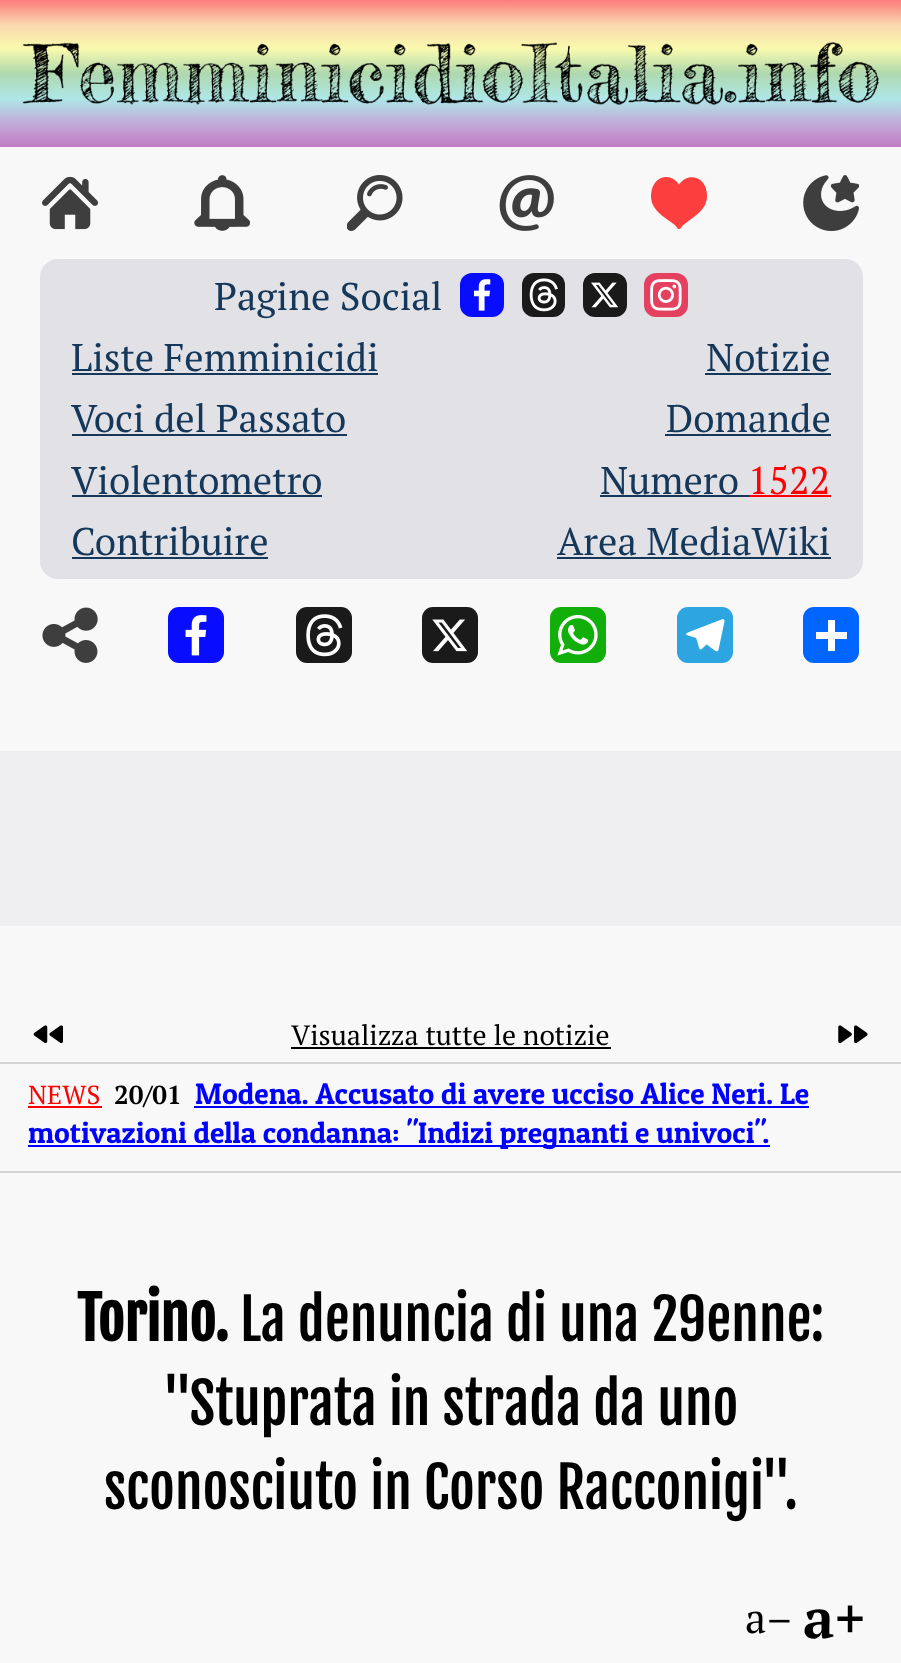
<svg xmlns="http://www.w3.org/2000/svg" width="901" height="1663" viewBox="0 0 901 1663">
  <defs>
    <linearGradient id="g1" gradientUnits="userSpaceOnUse" x1="451" y1="0" x2="451" y2="147"><stop offset="0" stop-color="rgb(252,124,124)"/><stop offset="0.17" stop-color="rgb(250,216,174)"/><stop offset="0.33" stop-color="rgb(250,250,174)"/><stop offset="0.5" stop-color="rgb(174,216,174)"/><stop offset="0.67" stop-color="rgb(174,231,231)"/><stop offset="0.83" stop-color="rgb(193,174,219)"/><stop offset="1" stop-color="rgb(195,124,195)"/></linearGradient>
  </defs>
  <rect width="100%" height="100%" fill="rgb(248,248,248)"/>
  <rect x="0" y="0" width="901" height="147" fill="url(#g1)"/>
  <image x="22" y="42" width="857" height="63" href="pic1.png"/>
  <image x="42" y="176" width="56" height="54" href="pic2.png"/>
  <image x="194" y="175" width="56" height="56" href="pic3.png"/>
  <image x="347" y="175" width="56" height="56" href="pic4.png"/>
  <image x="499" y="175" width="55" height="56" href="pic5.png"/>
  <image x="651" y="177" width="56" height="52" href="pic6.png"/>
  <image x="803" y="175" width="56" height="56" href="pic7.png"/>
  <rect x="40" y="259" width="823" height="320" rx="18" fill="rgb(225,225,230)"/>
  <text x="214" y="310" font-family="PT Serif" font-size="38.5" fill="rgb(20,55,90)">Pagine Social</text>
  <rect x="460" y="273" width="44" height="44" rx="12" fill="rgb(8,12,255)"/>
  <image x="473" y="279" width="18" height="32" href="pic8.png"/>
  <rect x="522" y="273" width="43" height="44" rx="12" fill="rgb(26,26,26)"/>
  <image x="529" y="278" width="29" height="34" href="pic9.png"/>
  <rect x="583" y="273" width="44" height="44" rx="12" fill="rgb(26,26,26)"/>
  <image x="591" y="282" width="28" height="26" href="pic10.png"/>
  <rect x="644" y="273" width="44" height="44" rx="12" fill="rgb(228,64,95)"/>
  <image x="650" y="279" width="32" height="32" href="pic11.png"/>
  <text x="71" y="371" font-family="PT Serif" font-size="38.5" fill="rgb(20,55,90)">Liste Femminicidi</text>
  <rect x="72" y="373" width="306" height="2" fill="rgb(20,55,90)"/>
  <text x="706" y="371" font-family="PT Serif" font-size="38.5" fill="rgb(20,55,90)">Notizie</text>
  <rect x="705" y="373" width="126" height="2" fill="rgb(20,55,90)"/>
  <text x="71" y="432" font-family="PT Serif" font-size="38.5" fill="rgb(20,55,90)">Voci del Passato</text>
  <rect x="72" y="434" width="275" height="2" fill="rgb(20,55,90)"/>
  <text x="666" y="432" font-family="PT Serif" font-size="38.5" fill="rgb(20,55,90)">Domande</text>
  <rect x="665" y="434" width="166" height="2" fill="rgb(20,55,90)"/>
  <text x="71" y="494" font-family="PT Serif" font-size="38.5" fill="rgb(20,55,90)">Violentometro</text>
  <rect x="72" y="495" width="250" height="2" fill="rgb(20,55,90)"/>
  <text x="600" y="494" font-family="PT Serif" font-size="38.5" fill="rgb(20,55,90)">Numero ‍</text>
  <rect x="600" y="495" width="149" height="2" fill="rgb(20,55,90)"/>
  <text x="748" y="494" font-family="PT Serif" font-size="38.5" fill="rgb(255,0,0)">1522</text>
  <rect x="749" y="495" width="82" height="2" fill="rgb(255,0,0)"/>
  <text x="71" y="555" font-family="PT Serif" font-size="38.5" fill="rgb(20,55,90)">Contribuire</text>
  <rect x="72" y="557" width="196" height="2" fill="rgb(20,55,90)"/>
  <text x="557" y="555" font-family="PT Serif" font-size="38.5" fill="rgb(20,55,90)">Area MediaWiki</text>
  <rect x="557" y="557" width="274" height="2" fill="rgb(20,55,90)"/>
  <image x="42" y="607" width="56" height="56" href="pic12.png"/>
  <rect x="168" y="607" width="56" height="56" rx="11" fill="rgb(8,12,255)"/>
  <image x="185" y="615" width="22" height="41" href="pic13.png"/>
  <rect x="296" y="607" width="56" height="56" rx="11" fill="rgb(26,26,26)"/>
  <image x="306" y="614" width="37" height="43" href="pic14.png"/>
  <rect x="422" y="607" width="56" height="56" rx="11" fill="rgb(26,26,26)"/>
  <image x="432" y="619" width="36" height="33" href="pic15.png"/>
  <rect x="550" y="607" width="56" height="56" rx="11" fill="rgb(18,175,10)"/>
  <image x="557" y="615" width="41" height="41" href="pic16.png"/>
  <rect x="677" y="607" width="56" height="56" rx="11" fill="rgb(44,165,224)"/>
  <image x="686" y="619" width="39" height="33" href="pic17.png"/>
  <rect x="803" y="607" width="56" height="56" rx="11" fill="rgb(1,102,255)"/>
  <rect x="828" y="620" width="7" height="31" fill="rgb(255,255,255)"/>
  <rect x="816" y="632" width="31" height="7" fill="rgb(248,248,248)"/>
  <rect x="0" y="751" width="901" height="175" fill="rgb(239,239,242)"/>
  <image x="33" y="1025" width="30" height="19" href="pic18.png"/>
  <text x="291" y="1045" font-family="PT Serif" font-size="28" fill="rgb(0,0,0)">Visualizza tutte le notizie</text>
  <rect x="291" y="1047" width="320" height="2" fill="rgb(0,0,0)"/>
  <image x="838" y="1025" width="30" height="19" href="pic19.png"/>
  <rect x="0" y="1062" width="901" height="2" fill="rgb(211,211,211)"/>
  <rect x="0" y="1171" width="901" height="2" fill="rgb(211,211,211)"/>
  <text x="28" y="1104" font-family="PT Serif" font-size="26" fill="rgb(255,0,0)">NEWS</text>
  <rect x="28" y="1106" width="74" height="2" fill="rgb(255,0,0)"/>
  <text x="114" y="1104" font-family="PT Serif" font-size="26" font-weight="bold" fill="rgb(0,0,0)">20/01</text>
  <text x="195" y="1104" font-family="Patua One" font-size="29.75" fill="rgb(0,0,255)">Modena. Accusato di avere ucciso Alice Neri. Le</text>
  <rect x="194" y="1106" width="615" height="2" fill="rgb(0,0,255)"/>
  <rect x="28" y="1145" width="742" height="2" fill="rgb(0,0,255)"/>
  <text x="28" y="1143" font-family="Patua One" font-size="29.75" fill="rgb(0,0,255)">motivazioni della condanna: "Indizi pregnanti e univoci".</text>
  <text x="77" y="1341" font-family="Fjalla One" font-size="58" font-weight="bold" fill="rgb(0,0,0)">Torino.</text>
  <g font-family="Fjalla One" font-size="56" fill="rgb(0,0,0)">
    <text x="240" y="1341">La denuncia di una 29enne:</text>
    <text x="162" y="1425">"Stuprata in strada da uno</text>
    <text x="104" y="1509">sconosciuto in Corso Racconigi".</text>
  </g>
  <text x="745" y="1633" font-family="PT Serif" font-size="42" fill="rgb(0,0,0)">a–</text>
  <text x="803" y="1638" font-family="PT Serif" font-size="56" font-weight="bold" fill="rgb(0,0,0)">a+</text>
</svg>
